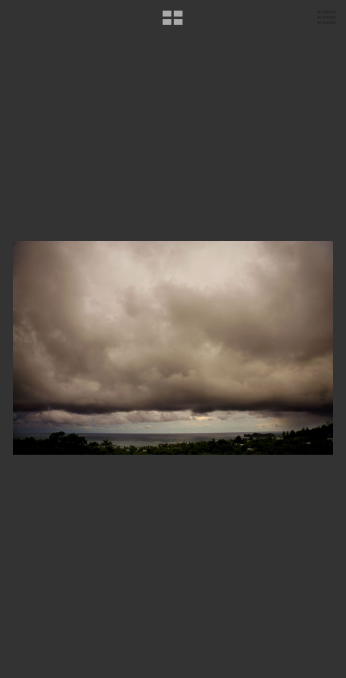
<svg xmlns="http://www.w3.org/2000/svg" width="346" height="678" viewBox="0 0 346 678">
  <rect width="100%" height="100%" fill="rgb(51,51,51)"/>
  <image x="162" y="10" width="21" height="15" href="pic1.png"/>
  <image x="317" y="10" width="19" height="14" href="pic2.png"/>
  <image x="13" y="241" width="320" height="214" href="pic3.png"/>
</svg>
